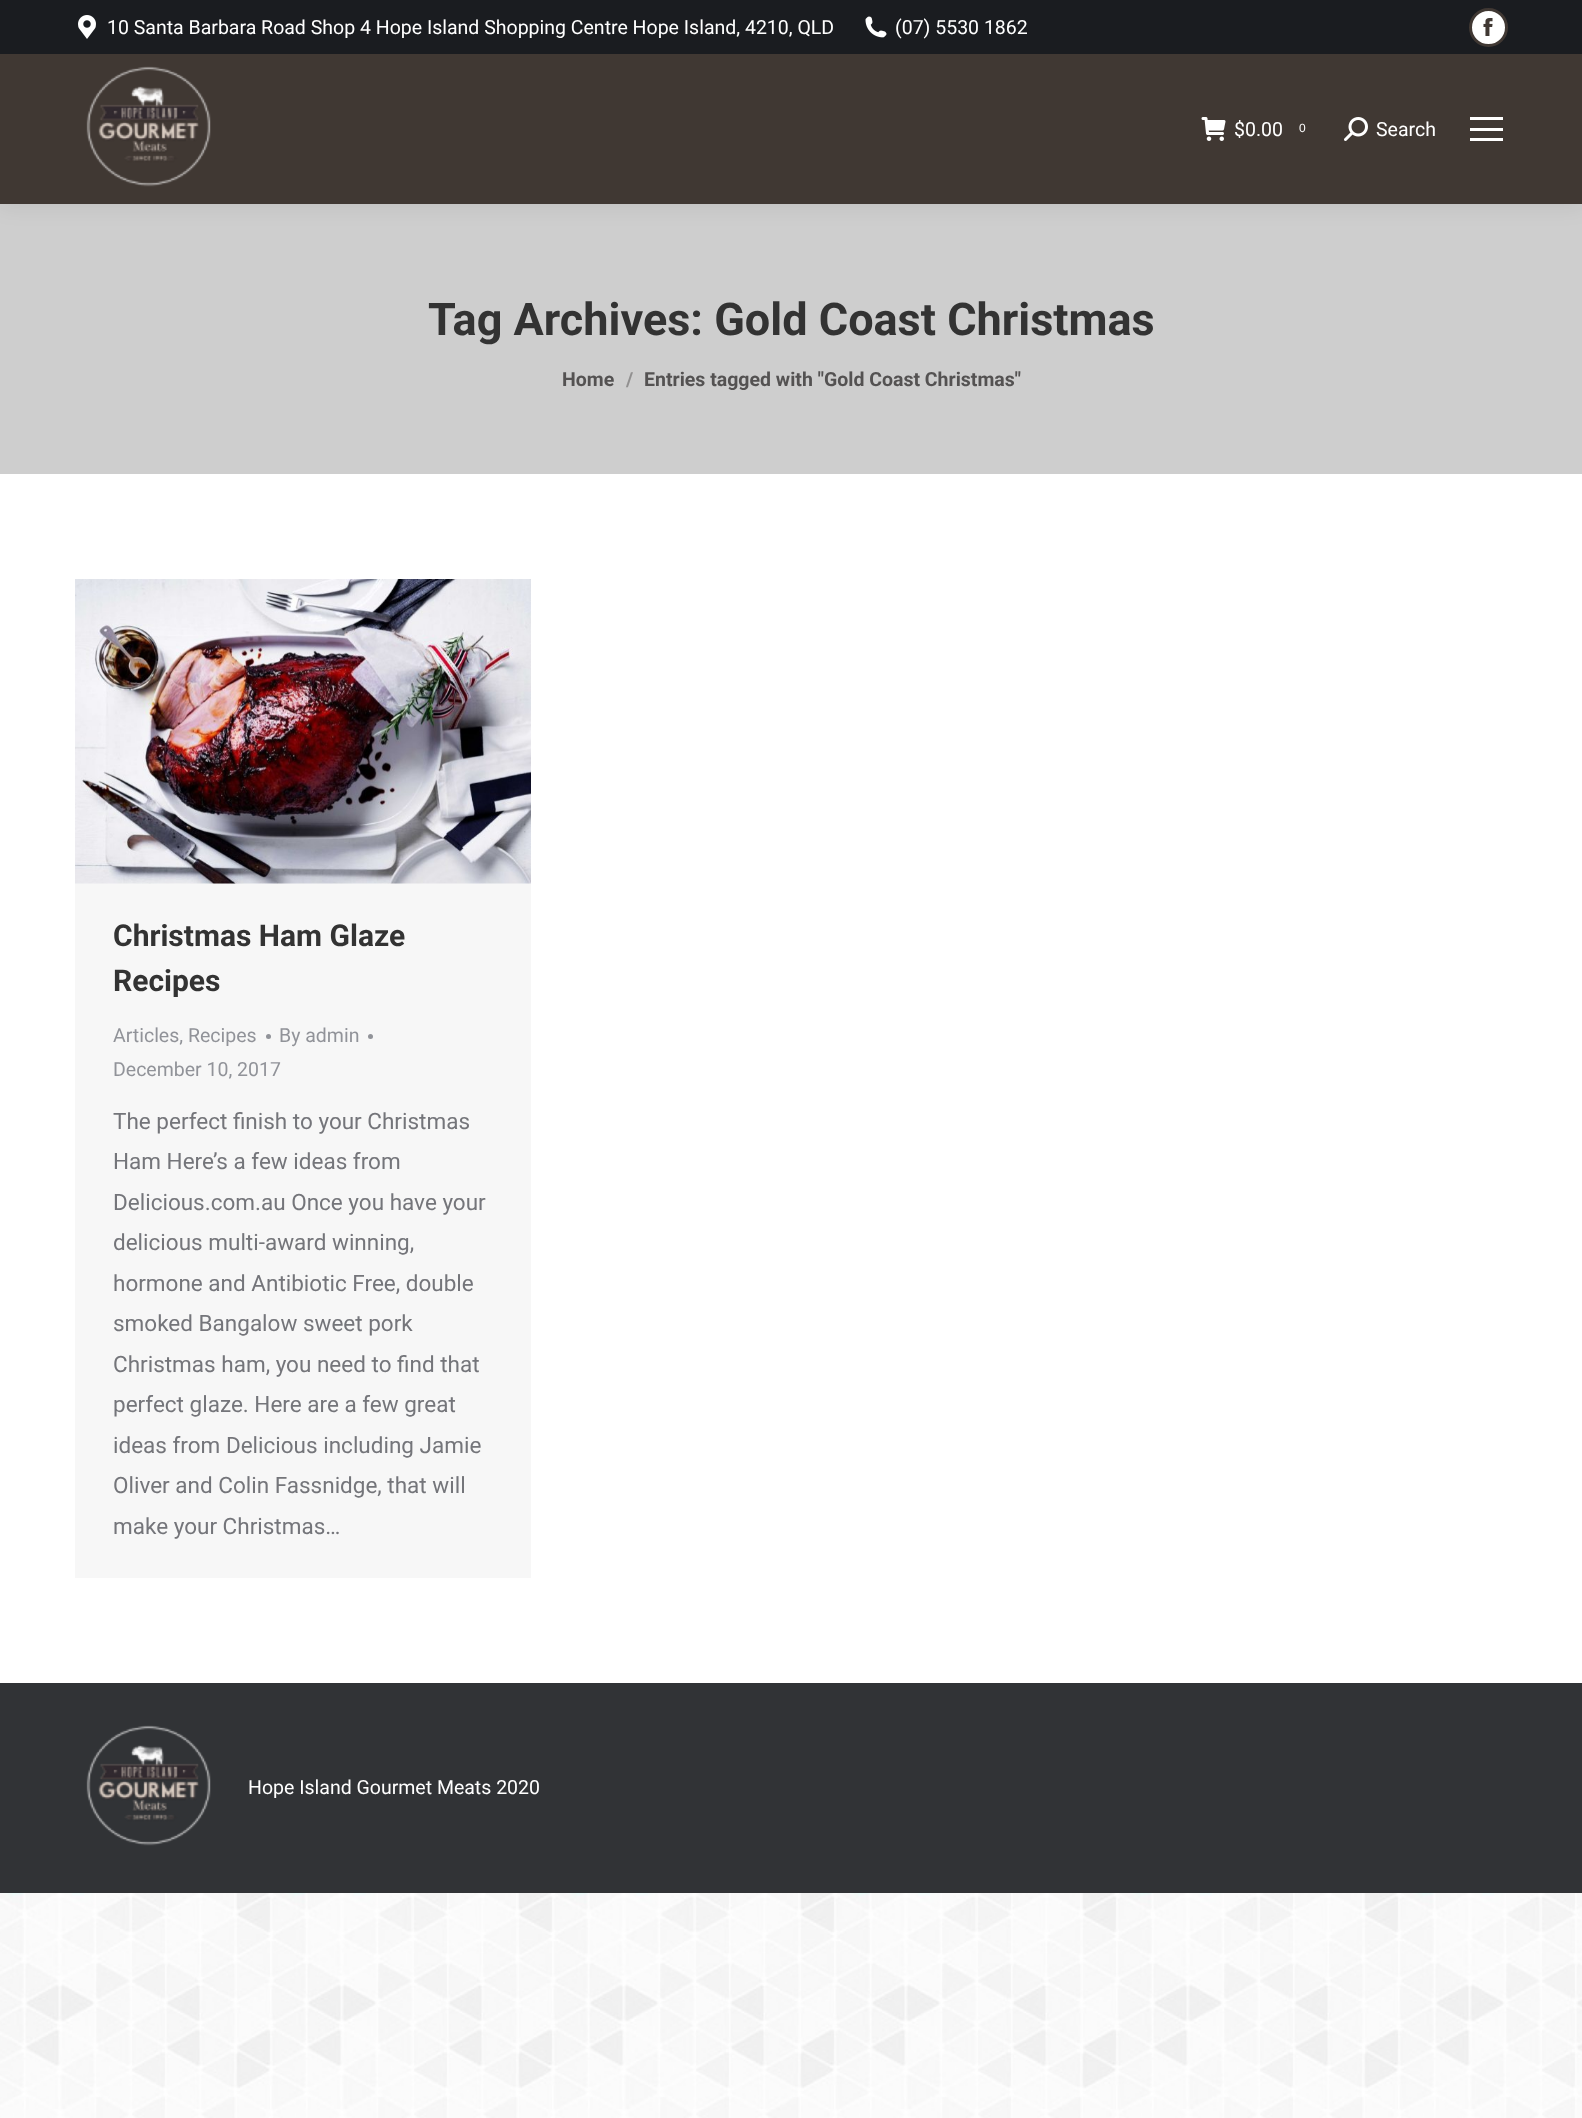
<svg xmlns="http://www.w3.org/2000/svg" width="1582" height="2118" viewBox="0 0 1582 2118">
  <rect width="100%" height="100%" fill="rgb(255,255,255)"/>
  <image x="0" y="1893" width="1582" height="225" href="pic1.png"/>
  <rect x="0" y="204" width="1582" height="270" fill="rgb(206,206,206)"/>
  <rect x="-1" y="-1" width="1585" height="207" fill="rgba(0,0,0,0.07)" filter="blur(11px)"/>
  <rect x="0" y="54" width="1582" height="150" fill="rgb(64,56,51)"/>
  <rect x="0" y="0" width="1582" height="54" fill="rgb(26,28,32)"/>
  <image x="78" y="15" width="18" height="24" href="pic2.png"/>
  <text x="107" y="34" font-family="Roboto" font-size="19.5" fill="rgb(255,255,255)">10 Santa Barbara Road Shop 4 Hope Island Shopping Centre Hope Island, 4210, QLD</text>
  <image x="865" y="16" width="22" height="22" href="pic3.png"/>
  <text x="895" y="34" font-family="Roboto" font-size="19.5" fill="rgb(255,255,255)">(07) 5530 1862</text>
  <circle cx="1488.5" cy="27.5" r="18" fill="rgb(255,255,255)" stroke="rgb(64,56,51)" stroke-width="3"/>
  <image x="1483" y="18" width="10" height="18" href="pic4.png"/>
  <image x="86" y="66" width="125" height="121" href="pic5.png"/>
  <image x="1201" y="117" width="25" height="24" href="pic6.png"/>
  <text x="1234" y="136" font-family="Roboto" font-size="19.5" fill="rgb(255,255,255)">$0.00</text>
  <text x="1299" y="132" font-family="Liberation Sans" font-size="12" fill="rgb(255,255,255)">0</text>
  <image x="1344" y="117" width="24" height="24" href="pic7.png"/>
  <text x="1376" y="136" font-family="Roboto" font-size="19.5" fill="rgb(255,255,255)">Search</text>
  <rect x="1470" y="117" width="33" height="3" fill="rgb(255,255,255)"/>
  <rect x="1470" y="128" width="33" height="3" fill="rgb(255,255,255)"/>
  <rect x="1470" y="138" width="33" height="3" fill="rgb(255,255,255)"/>
  <text x="428" y="335" font-family="Roboto" font-size="45" font-weight="bold" fill="rgb(51,51,51)">Tag Archives: Gold Coast Christmas</text>
  <text x="562" y="386" font-family="Roboto" font-size="19.5" font-weight="bold" fill="rgb(84,82,82)">Home</text>
  <text x="626" y="386" font-family="Roboto" font-size="19.5" font-weight="bold" fill="rgb(145,144,144)">/</text>
  <text x="644" y="386" font-family="Roboto" font-size="19.5" font-weight="bold" fill="rgb(84,82,82)">Entries tagged with "Gold Coast Christmas"</text>
  <rect x="75" y="883" width="456" height="695" fill="rgb(247,247,247)"/>
  <image x="75" y="579" width="456" height="305" href="pic8.png"/>
  <g font-family="Roboto" font-size="30" font-weight="bold" fill="rgb(51,51,51)">
    <text>
      <tspan x="113" y="946">Christmas Ham Glaze</tspan>
      <tspan x="113" y="991">Recipes</tspan>
    </text>
  </g>
  <text x="113" y="1042" font-family="Roboto" font-size="19.5" fill="rgb(145,147,153)">Articles, Recipes</text>
  <circle cx="268.5" cy="1036.5" r="2.5" fill="rgb(145,147,153)"/>
  <text x="279" y="1042" font-family="Roboto" font-size="19.5" fill="rgb(145,147,153)">By admin</text>
  <circle cx="370.5" cy="1036.5" r="2.5" fill="rgb(145,147,153)"/>
  <text x="113" y="1076" font-family="Roboto" font-size="19.5" fill="rgb(145,147,153)">December 10, 2017</text>
  <g font-family="Roboto" font-size="22.5" fill="rgb(116,117,122)">
    <text>
      <tspan x="113" y="1129">The perfect finish to your Christmas</tspan>
      <tspan x="113" y="1169">Ham Here’s a few ideas from</tspan>
      <tspan x="113" y="1210">Delicious.com.au Once you have your</tspan>
      <tspan x="113" y="1250">delicious multi-award winning,</tspan>
      <tspan x="113" y="1291">hormone and Antibiotic Free, double</tspan>
      <tspan x="113" y="1331">smoked Bangalow sweet pork</tspan>
      <tspan x="113" y="1372">Christmas ham, you need to find that</tspan>
      <tspan x="113" y="1412">perfect glaze. Here are a few great</tspan>
      <tspan x="113" y="1453">ideas from Delicious including Jamie</tspan>
      <tspan x="113" y="1493">Oliver and Colin Fassnidge, that will</tspan>
      <tspan x="113" y="1534">make your Christmas…</tspan>
    </text>
  </g>
  <rect x="0" y="1683" width="1582" height="210" fill="rgb(49,51,54)"/>
  <image x="86" y="1725" width="125" height="121" href="pic9.png"/>
  <text x="248" y="1794" font-family="Roboto" font-size="19.5" fill="rgb(255,255,255)">Hope Island Gourmet Meats 2020</text>
</svg>
